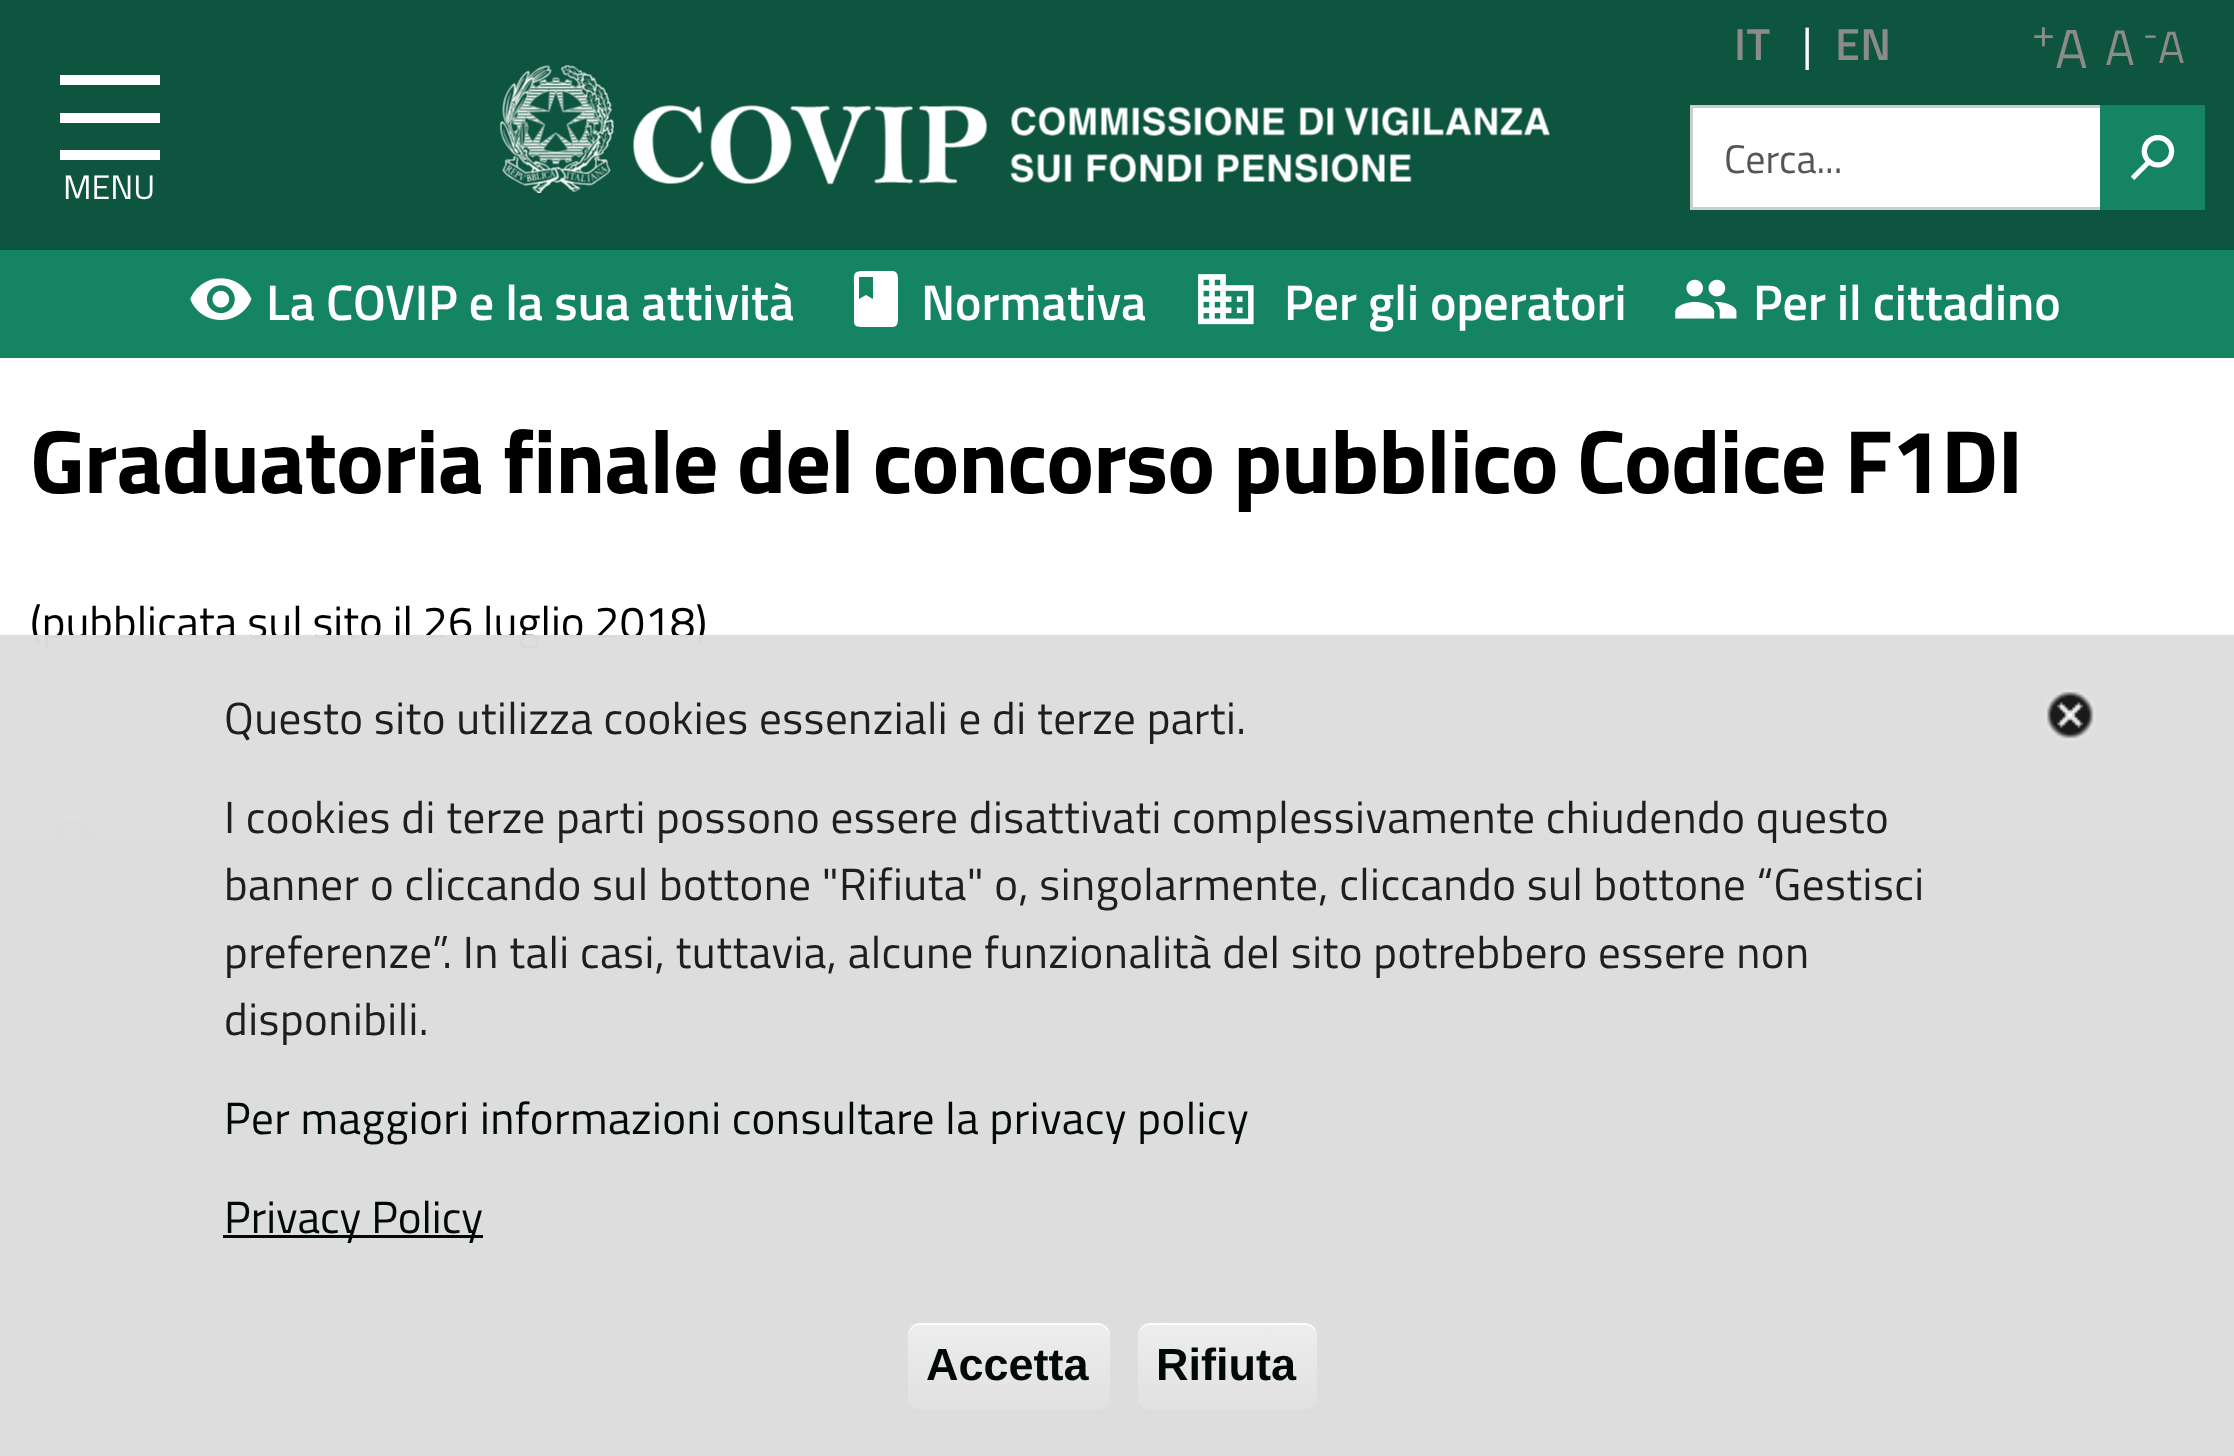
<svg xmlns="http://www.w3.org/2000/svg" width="2234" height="1456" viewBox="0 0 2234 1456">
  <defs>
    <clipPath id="clip1"><rect x="905" y="1320" width="208" height="93" rx="15"/></clipPath>
    <linearGradient id="g1" gradientUnits="userSpaceOnUse" x1="1009" y1="1235" x2="1009" y2="1323"><stop offset="0.05" stop-color="rgb(237,237,237)" stop-opacity="0.88"/><stop offset="1" stop-color="rgb(223,223,223)" stop-opacity="0.88"/></linearGradient>
    <linearGradient id="g2" gradientUnits="userSpaceOnUse" x1="1009" y1="1323" x2="1009" y2="1410"><stop offset="0.05" stop-color="rgb(237,237,237)" stop-opacity="0.88"/><stop offset="1" stop-color="rgb(223,223,223)" stop-opacity="0.88"/></linearGradient>
    <linearGradient id="g3" gradientUnits="userSpaceOnUse" x1="1009" y1="1410" x2="1009" y2="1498"><stop offset="0.05" stop-color="rgb(211,219,216)"/><stop offset="1" stop-color="rgb(198,207,204)"/></linearGradient>
    <clipPath id="clip2"><rect x="1135" y="1320" width="185" height="93" rx="15"/></clipPath>
    <linearGradient id="g4" gradientUnits="userSpaceOnUse" x1="1228" y1="1235" x2="1228" y2="1323"><stop offset="0.05" stop-color="rgb(237,237,237)" stop-opacity="0.88"/><stop offset="1" stop-color="rgb(223,223,223)" stop-opacity="0.88"/></linearGradient>
    <linearGradient id="g5" gradientUnits="userSpaceOnUse" x1="1228" y1="1323" x2="1228" y2="1410"><stop offset="0.05" stop-color="rgb(237,237,237)" stop-opacity="0.88"/><stop offset="1" stop-color="rgb(223,223,223)" stop-opacity="0.88"/></linearGradient>
    <linearGradient id="g6" gradientUnits="userSpaceOnUse" x1="1228" y1="1410" x2="1228" y2="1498"><stop offset="0.05" stop-color="rgb(211,219,216)"/><stop offset="1" stop-color="rgb(198,207,204)"/></linearGradient>
  </defs>
  <rect width="100%" height="100%" fill="rgb(255,255,255)"/>
  <rect x="0" y="0" width="2234" height="250" fill="rgb(13,85,63)"/>
  <image x="499" y="65" width="1051" height="128" href="pic1.png"/>
  <text x="1734" y="60" font-family="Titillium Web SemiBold" font-size="45" font-weight="600" letter-spacing="0.45" fill="rgb(139,139,139)">IT</text>
  <text x="1802" y="60" font-family="Titillium Web" font-size="45" letter-spacing="0.45" fill="rgb(255,255,255)">|</text>
  <text x="1835" y="60" font-family="Titillium Web SemiBold" font-size="45" font-weight="600" letter-spacing="0.45" fill="rgb(139,139,139)">EN</text>
  <text x="2032" y="47" font-family="Titillium Web" font-size="41" fill="rgb(139,139,139)">+</text>
  <text x="2055" y="68" font-family="Titillium Web" font-size="55" fill="rgb(139,139,139)">A</text>
  <text x="2105" y="65" font-family="Titillium Web" font-size="50" fill="rgb(139,139,139)">A</text>
  <text x="2143" y="46" font-family="Titillium Web" font-size="34" fill="rgb(139,139,139)">-</text>
  <text x="2158" y="63" font-family="Titillium Web" font-size="45" fill="rgb(139,139,139)">A</text>
  <rect x="1693" y="108" width="407" height="99" fill="rgb(255,255,255)"/>
  <rect x="1691.5" y="106.5" width="512" height="102" fill="none" stroke="rgb(204,204,204)" stroke-width="3"/>
  <text x="1724" y="173" font-family="Titillium Web" font-size="40" fill="rgb(85,85,85)">Cerca...</text>
  <rect x="2100" y="105" width="105" height="105" fill="rgb(21,132,99)"/>
  <text x="2130" y="180" font-family="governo" font-size="45" fill="rgb(255,255,255)">h</text>
  <rect x="60" y="75" width="100" height="10" fill="rgb(255,255,255)"/>
  <rect x="60" y="113" width="100" height="10" fill="rgb(255,255,255)"/>
  <rect x="60" y="150" width="100" height="10" fill="rgb(255,255,255)"/>
  <text x="63" y="199" font-family="Titillium Web" font-size="34" fill="rgb(255,255,255)">MENU</text>
  <rect x="0" y="250" width="2234" height="108" fill="rgb(21,132,99)"/>
  <image x="190" y="278" width="62" height="42" href="pic2.png"/>
  <text x="266" y="320" font-family="Titillium Web SemiBold" font-size="50" font-weight="600" fill="rgb(255,255,255)">La COVIP e la sua attività</text>
  <path d="M859 277V299L866 295L873 299V277ZM893 271C899 271 898 280 898 284V314C898 318 899 327 893 327H865C853 327 854 326 854 314V284C854 273 853 271 865 271Z" fill="rgb(255,255,255)"/>
  <text x="921" y="320" font-family="Titillium Web SemiBold" font-size="50" font-weight="600" fill="rgb(255,255,255)">Normativa</text>
  <image x="1198" y="274" width="56" height="51" href="pic3.png"/>
  <text x="1284" y="320" font-family="Titillium Web SemiBold" font-size="50" font-weight="600" fill="rgb(255,255,255)">Per gli operatori</text>
  <image x="1675" y="279" width="62" height="40" href="pic4.png"/>
  <text x="1753" y="320" font-family="Titillium Web SemiBold" font-size="50" font-weight="600" fill="rgb(255,255,255)">Per il cittadino</text>
  <text x="30" y="493" font-family="Titillium Web" font-size="90" font-weight="bold" letter-spacing="-0.9" fill="rgb(0,0,0)">Graduatoria finale del concorso pubblico Codice F1DI</text>
  <text x="30" y="638" font-family="Titillium Web" font-size="45" fill="rgb(0,0,0)">(pubblicata sul sito il 26 luglio 2018)</text>
  <image x="59" y="822" width="32" height="41" href="pic5.png"/>
  <rect x="0" y="1053" width="2234" height="403" fill="rgb(13,85,63)"/>
  <image x="501" y="1218" width="1051" height="127" href="pic6.png"/>
  <rect x="0" y="635" width="2234" height="821" fill="rgba(221,221,221,0.98)"/>
  <rect x="0" y="838" width="2234" height="618" fill="rgba(221,221,221,0.88)"/>
  <g font-family="Titillium Web" font-size="45" letter-spacing="0.45" fill="rgb(30,30,30)">
    <text x="224" y="734">Questo sito utilizza cookies essenziali e di terze parti.</text>
    <text>
      <tspan x="224" y="833">I cookies di terze parti possono essere disattivati complessivamente chiudendo questo</tspan>
      <tspan x="224" y="900">banner o cliccando sul bottone "Rifiuta" o, singolarmente, cliccando sul bottone “Gestisci</tspan>
      <tspan x="224" y="968">preferenze”. In tali casi, tuttavia, alcune funzionalità del sito potrebbero essere non</tspan>
      <tspan x="224" y="1035">disponibili.</tspan>
    </text>
  </g>
  <text x="224" y="1134" font-family="Titillium Web" font-size="45" letter-spacing="0.45" fill="rgb(2,10,7)">Per maggiori informazioni consultare la privacy policy</text>
  <rect x="223" y="1235" width="260" height="3" fill="rgb(2,10,7)"/>
  <text x="224" y="1233" font-family="Titillium Web" font-size="45" fill="rgb(2,10,7)">Privacy Policy</text>
  <image x="2044" y="689" width="52" height="52" href="pic7.png"/>
  <rect x="905" y="1320" width="208" height="93" rx="15" fill="rgb(235,235,235)"/>
  <g clip-path="url(#clip1)">
    <rect x="905" y="1320" width="208" height="3" fill="url(#g1)"/>
    <rect x="905" y="1323" width="208" height="87" fill="url(#g2)"/>
    <rect x="905" y="1410" width="208" height="3" fill="url(#g3)"/>
  </g>
  <path d="M920 1325H1098C1104 1325 1110 1331 1110 1338V1336C1110 1329 1104 1323 1097 1323H921C914 1323 908 1329 908 1336V1338C908 1331 913 1325 920 1325Z" fill="rgb(253,253,253)"/>
  <rect x="906.5" y="1321.5" width="205" height="90" rx="13.5" fill="none" stroke="rgba(220,220,220,0.88)" stroke-width="3"/>
  <text x="926" y="1380" font-family="Liberation Sans" font-size="45" font-weight="bold" fill="rgb(2,10,7)">Accetta</text>
  <rect x="1135" y="1320" width="185" height="93" rx="15" fill="rgb(235,235,235)"/>
  <g clip-path="url(#clip2)">
    <rect x="1135" y="1320" width="185" height="3" fill="url(#g4)"/>
    <rect x="1135" y="1323" width="185" height="87" fill="url(#g5)"/>
    <rect x="1135" y="1410" width="185" height="3" fill="url(#g6)"/>
  </g>
  <path d="M1150 1325H1305C1312 1325 1318 1331 1318 1338C1318 1317 1293 1323 1279 1323H1177C1163 1323 1138 1317 1138 1338C1138 1331 1143 1325 1150 1325Z" fill="rgba(255,255,255,0.88)"/>
  <rect x="1136.5" y="1321.5" width="182" height="90" rx="13.5" fill="none" stroke="rgba(220,220,220,0.88)" stroke-width="3"/>
  <text x="1156" y="1380" font-family="Liberation Sans" font-size="45" font-weight="bold" fill="rgb(2,10,7)">Rifiuta</text>
</svg>
